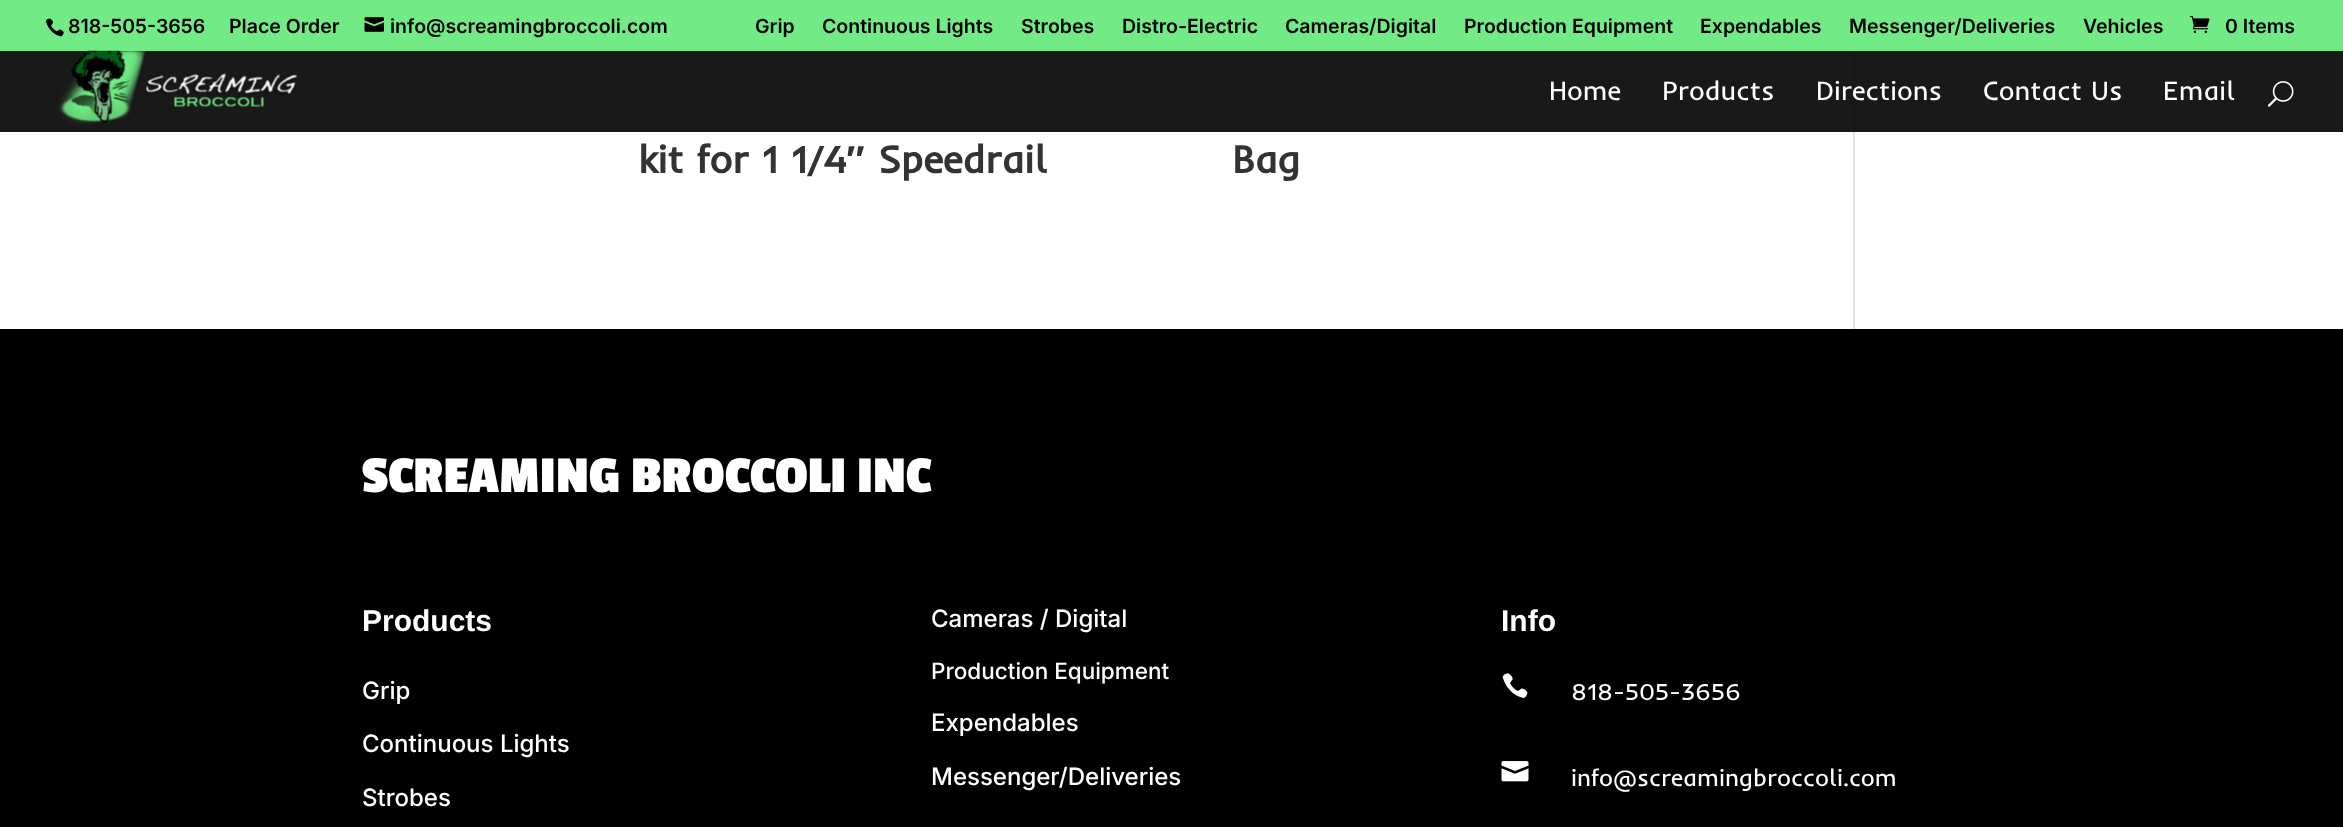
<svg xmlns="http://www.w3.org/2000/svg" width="2343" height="827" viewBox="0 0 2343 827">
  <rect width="100%" height="100%" fill="rgb(255,255,255)"/>
  <rect x="46" y="-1" width="468" height="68" fill="none" stroke="rgb(242,242,242)" stroke-width="2"/>
  <rect x="640" y="-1" width="468" height="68" fill="none" stroke="rgb(242,242,242)" stroke-width="2"/>
  <rect x="1233" y="-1" width="467" height="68" fill="none" stroke="rgb(242,242,242)" stroke-width="2"/>
  <rect x="0" y="0" width="2343" height="51" fill="rgb(114,234,134)"/>
  <image x="45" y="18" width="19" height="19" href="pic1.png"/>
  <g font-family="Inter" font-size="19.5" font-weight="600" fill="rgb(0,0,0)">
    <text x="68" y="33">818-505-3656</text>
    <text x="229" y="33">Place Order</text>
  </g>
  <image x="364" y="17" width="20" height="15" href="pic2.png"/>
  <g font-family="Inter" font-size="19.5" font-weight="600" fill="rgb(0,0,0)">
    <text x="390" y="33">info@screamingbroccoli.com</text>
    <text x="755" y="33">Grip</text>
    <text x="822" y="33">Continuous Lights</text>
    <text x="1021" y="33">Strobes</text>
    <text x="1122" y="33">Distro-Electric</text>
    <text x="1285" y="33">Cameras/Digital</text>
    <text x="1464" y="33">Production Equipment</text>
    <text x="1700" y="33">Expendables</text>
    <text x="1849" y="33">Messenger/Deliveries</text>
    <text x="2083" y="33">Vehicles</text>
  </g>
  <image x="2190" y="15" width="20" height="18" href="pic3.png"/>
  <text x="2225" y="33" font-family="Inter" font-size="19.5" font-weight="600" fill="rgb(0,0,0)">0 Items</text>
  <rect x="46" y="51" width="1" height="15" fill="rgb(249,249,249)"/>
  <rect x="640" y="51" width="1" height="15" fill="rgb(249,249,249)"/>
  <rect x="1233" y="51" width="467" height="15" fill="rgb(255,255,255)"/>
  <rect x="1853" y="51" width="2" height="278" fill="rgb(226,226,226)"/>
  <rect x="0" y="51" width="2343" height="81" fill="rgba(0,0,0,0.9)"/>
  <image x="58" y="50" width="240" height="76" href="pic4.png"/>
  <g font-family="Inder" font-size="27" fill="rgb(255,255,255)">
    <text x="1549" y="100">Home</text>
    <text x="1662" y="100">Products</text>
    <text x="1816" y="100">Directions</text>
    <text x="1983" y="100">Contact Us</text>
    <text x="2163" y="100">Email</text>
  </g>
  <image x="2267" y="81" width="27" height="26" href="pic5.png"/>
  <text x="638" y="173" font-family="Inder" font-size="39" font-weight="bold" fill="rgb(51,51,51)">kit for 1 1/4</text>
  <text x="846" y="173" font-family="Liberation Sans" font-size="39" font-weight="bold" fill="rgb(51,51,51)">″</text>
  <g font-family="Inder" font-size="39" font-weight="bold" fill="rgb(51,51,51)">
    <text x="878" y="173">Speedrail</text>
    <text x="1232" y="173">Bag</text>
  </g>
  <rect x="0" y="329" width="2343" height="498" fill="rgb(0,0,0)"/>
  <text x="362" y="492" font-family="Passion One" font-size="54" font-weight="bold" fill="rgb(255,255,255)">SCREAMING BROCCOLI INC</text>
  <text x="362" y="631" font-family="Liberation Sans" font-size="30" font-weight="bold" fill="rgb(255,255,255)">Products</text>
  <g font-family="Inter" font-size="24" font-weight="500" fill="rgb(255,255,255)">
    <text x="362" y="699">Grip</text>
    <text x="362" y="752">Continuous Lights</text>
    <text x="362" y="806">Strobes</text>
    <text x="931" y="627">Cameras / Digital</text>
  </g>
  <text x="931" y="679" font-family="Inter" font-size="22.5" font-weight="500" fill="rgb(255,255,255)">Production Equipment</text>
  <g font-family="Inter" font-size="24" font-weight="500" fill="rgb(255,255,255)">
    <text x="931" y="731">Expendables</text>
    <text x="931" y="785">Messenger/Deliveries</text>
  </g>
  <text x="1501" y="631" font-family="Liberation Sans" font-size="30" font-weight="bold" fill="rgb(255,255,255)">Info</text>
  <image x="1502" y="673" width="26" height="26" href="pic6.png"/>
  <text x="1571" y="700" font-family="Inder" font-size="24" fill="rgb(255,255,255)">818-505-3656</text>
  <image x="1501" y="761" width="28" height="21" href="pic7.png"/>
  <text x="1571" y="786" font-family="Inder" font-size="24" fill="rgb(255,255,255)">info@screamingbroccoli.com</text>
</svg>
